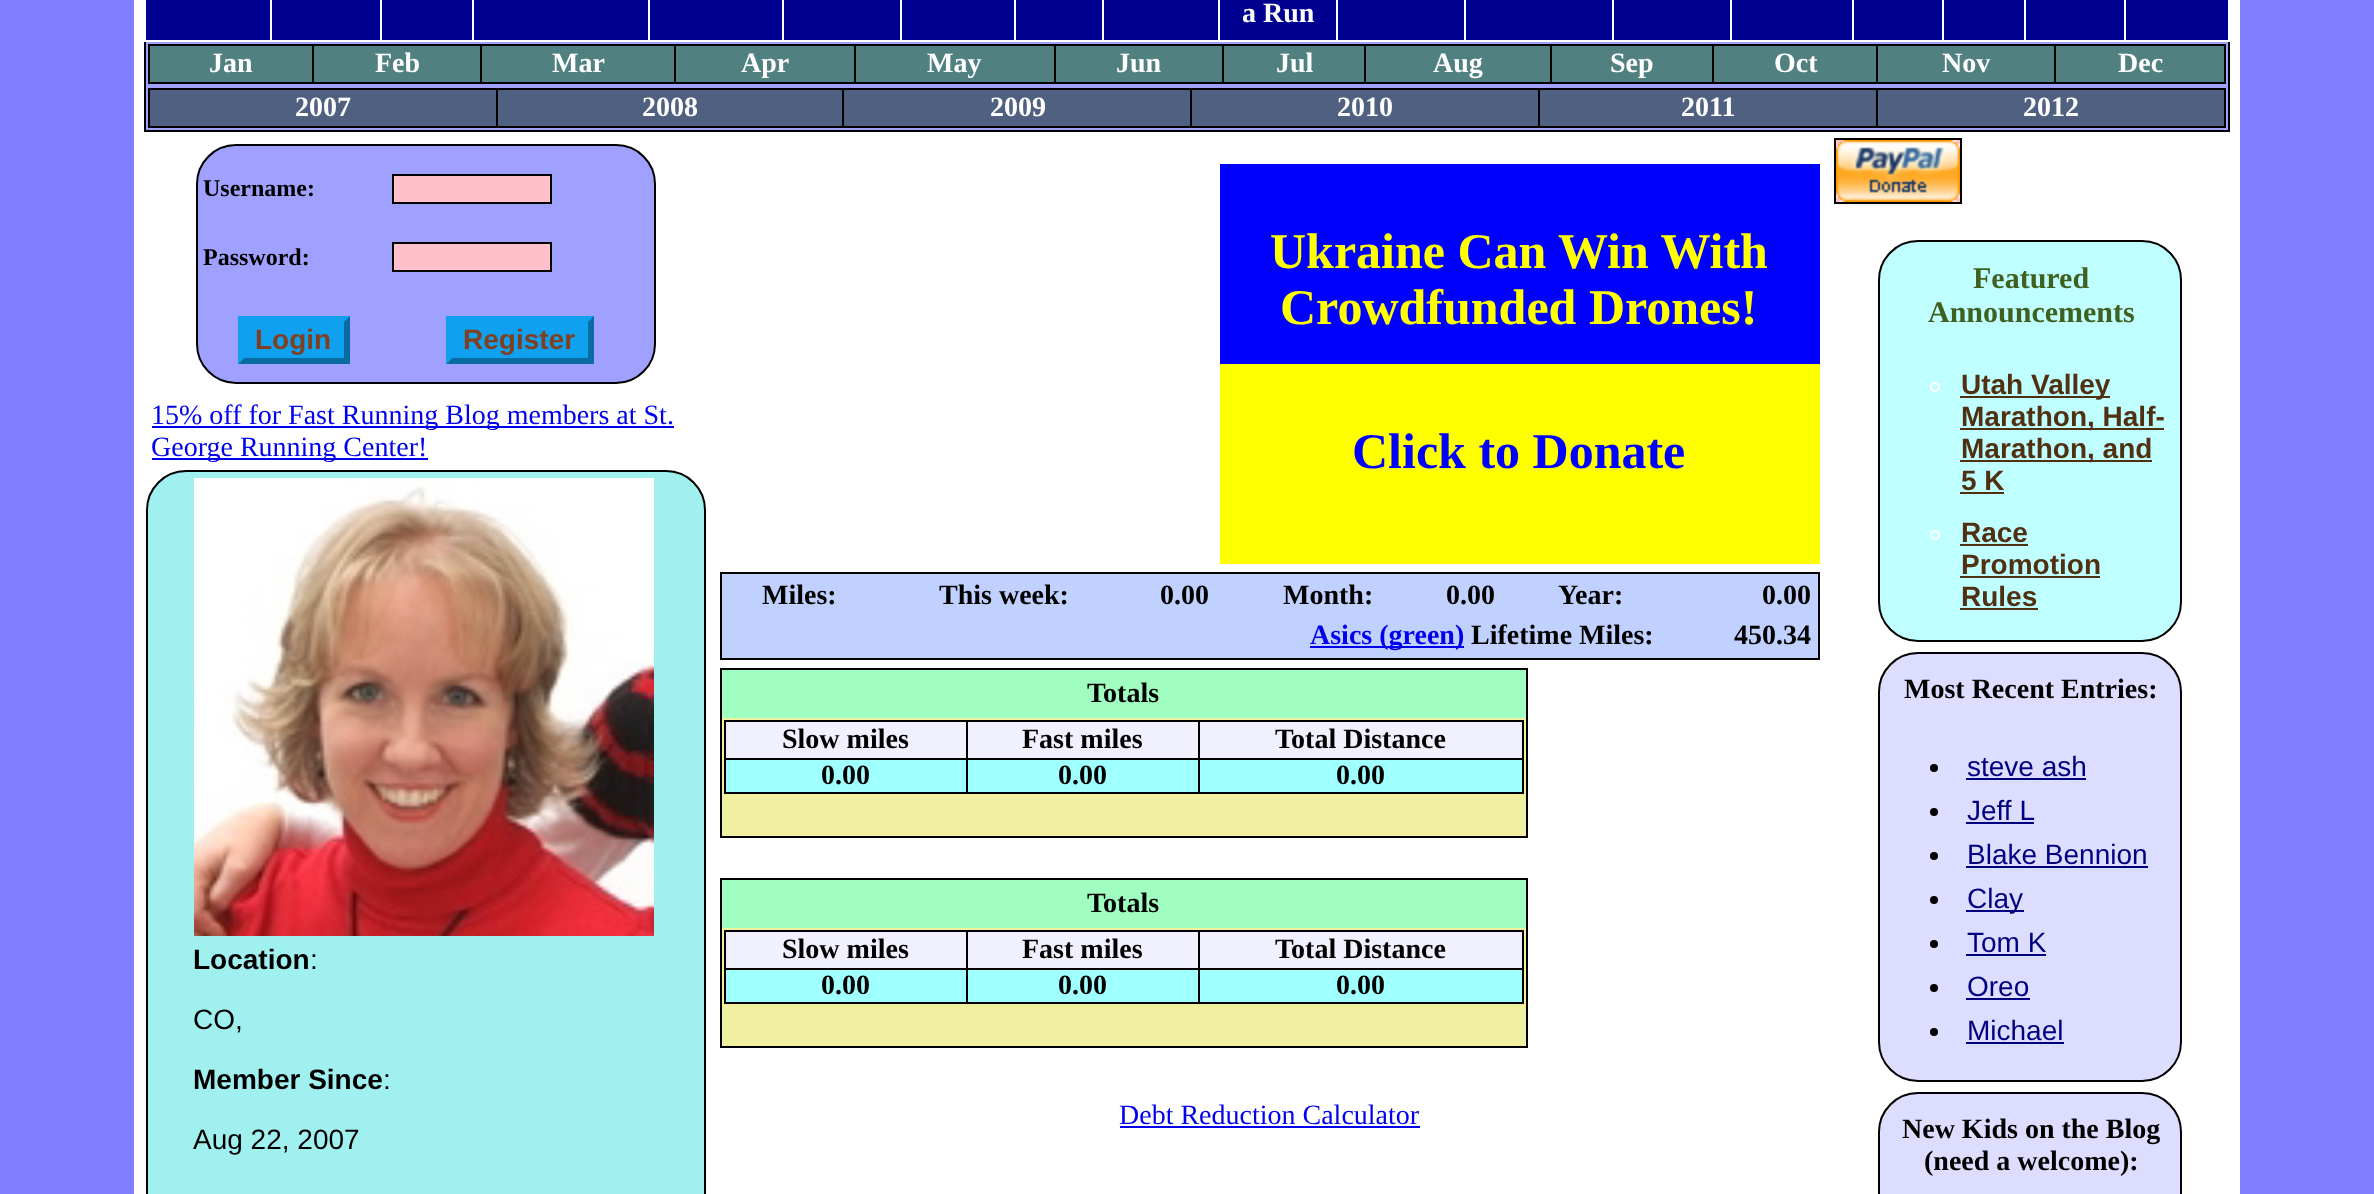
<svg xmlns="http://www.w3.org/2000/svg" width="2374" height="1194" viewBox="0 0 2374 1194">
  <rect width="100%" height="100%" fill="rgb(128,128,255)"/>
  <rect x="134" y="0" width="2106" height="1194" fill="rgb(255,255,255)"/>
  <rect x="146" y="42" width="2082" height="88" fill="rgb(160,160,255)"/>
  <rect x="2228" y="42" width="2" height="90" fill="rgb(0,0,0)"/>
  <rect x="144" y="130" width="2086" height="2" fill="rgb(0,0,0)"/>
  <rect x="144" y="42" width="2" height="90" fill="rgb(0,0,0)"/>
  <rect x="146" y="0" width="124" height="40" fill="rgb(0,0,144)"/>
  <rect x="272" y="0" width="108" height="40" fill="rgb(0,0,144)"/>
  <rect x="382" y="0" width="90" height="40" fill="rgb(0,0,144)"/>
  <rect x="474" y="0" width="174" height="40" fill="rgb(0,0,144)"/>
  <rect x="650" y="0" width="132" height="40" fill="rgb(0,0,144)"/>
  <rect x="784" y="0" width="116" height="40" fill="rgb(0,0,144)"/>
  <rect x="902" y="0" width="112" height="40" fill="rgb(0,0,144)"/>
  <rect x="1016" y="0" width="86" height="40" fill="rgb(0,0,144)"/>
  <rect x="1104" y="0" width="114" height="40" fill="rgb(0,0,144)"/>
  <rect x="1220" y="0" width="116" height="40" fill="rgb(0,0,144)"/>
  <text x="1242" y="22" font-family="Liberation Serif" font-size="28" font-weight="bold" fill="rgb(255,255,255)">a Run</text>
  <rect x="1338" y="0" width="126" height="40" fill="rgb(0,0,144)"/>
  <rect x="1466" y="0" width="146" height="40" fill="rgb(0,0,144)"/>
  <rect x="1614" y="0" width="116" height="40" fill="rgb(0,0,144)"/>
  <rect x="1732" y="0" width="120" height="40" fill="rgb(0,0,144)"/>
  <rect x="1854" y="0" width="88" height="40" fill="rgb(0,0,144)"/>
  <rect x="1944" y="0" width="80" height="40" fill="rgb(0,0,144)"/>
  <rect x="2026" y="0" width="98" height="40" fill="rgb(0,0,144)"/>
  <rect x="2126" y="0" width="102" height="40" fill="rgb(0,0,144)"/>
  <rect x="148" y="44" width="2078" height="2" fill="rgb(0,0,0)"/>
  <rect x="2224" y="44" width="2" height="40" fill="rgb(0,0,0)"/>
  <rect x="148" y="82" width="2078" height="2" fill="rgb(0,0,0)"/>
  <rect x="148" y="44" width="2" height="40" fill="rgb(0,0,0)"/>
  <rect x="150" y="46" width="162" height="36" fill="rgb(80,128,128)"/>
  <text x="209" y="72" font-family="Liberation Serif" font-size="28" font-weight="bold" fill="rgb(255,255,255)">Jan</text>
  <rect x="314" y="46" width="166" height="36" fill="rgb(80,128,128)"/>
  <rect x="312" y="44" width="2" height="40" fill="rgb(0,0,0)"/>
  <text x="375" y="72" font-family="Liberation Serif" font-size="28" font-weight="bold" fill="rgb(255,255,255)">Feb</text>
  <rect x="482" y="46" width="192" height="36" fill="rgb(80,128,128)"/>
  <rect x="480" y="44" width="2" height="40" fill="rgb(0,0,0)"/>
  <text x="552" y="72" font-family="Liberation Serif" font-size="28" font-weight="bold" fill="rgb(255,255,255)">Mar</text>
  <rect x="676" y="46" width="178" height="36" fill="rgb(80,128,128)"/>
  <rect x="674" y="44" width="2" height="40" fill="rgb(0,0,0)"/>
  <text x="741" y="72" font-family="Liberation Serif" font-size="28" font-weight="bold" fill="rgb(255,255,255)">Apr</text>
  <rect x="856" y="46" width="198" height="36" fill="rgb(80,128,128)"/>
  <rect x="854" y="44" width="2" height="40" fill="rgb(0,0,0)"/>
  <text x="927" y="72" font-family="Liberation Serif" font-size="28" font-weight="bold" fill="rgb(255,255,255)">May</text>
  <rect x="1056" y="46" width="166" height="36" fill="rgb(80,128,128)"/>
  <rect x="1054" y="44" width="2" height="40" fill="rgb(0,0,0)"/>
  <text x="1116" y="72" font-family="Liberation Serif" font-size="28" font-weight="bold" fill="rgb(255,255,255)">Jun</text>
  <rect x="1224" y="46" width="140" height="36" fill="rgb(80,128,128)"/>
  <rect x="1222" y="44" width="2" height="40" fill="rgb(0,0,0)"/>
  <text x="1276" y="72" font-family="Liberation Serif" font-size="28" font-weight="bold" fill="rgb(255,255,255)">Jul</text>
  <rect x="1366" y="46" width="184" height="36" fill="rgb(80,128,128)"/>
  <rect x="1364" y="44" width="2" height="40" fill="rgb(0,0,0)"/>
  <text x="1433" y="72" font-family="Liberation Serif" font-size="28" font-weight="bold" fill="rgb(255,255,255)">Aug</text>
  <rect x="1552" y="46" width="160" height="36" fill="rgb(80,128,128)"/>
  <rect x="1550" y="44" width="2" height="40" fill="rgb(0,0,0)"/>
  <text x="1610" y="72" font-family="Liberation Serif" font-size="28" font-weight="bold" fill="rgb(255,255,255)">Sep</text>
  <rect x="1714" y="46" width="162" height="36" fill="rgb(80,128,128)"/>
  <rect x="1712" y="44" width="2" height="40" fill="rgb(0,0,0)"/>
  <text x="1774" y="72" font-family="Liberation Serif" font-size="28" font-weight="bold" fill="rgb(255,255,255)">Oct</text>
  <rect x="1878" y="46" width="176" height="36" fill="rgb(80,128,128)"/>
  <rect x="1876" y="44" width="2" height="40" fill="rgb(0,0,0)"/>
  <text x="1942" y="72" font-family="Liberation Serif" font-size="28" font-weight="bold" fill="rgb(255,255,255)">Nov</text>
  <rect x="2056" y="46" width="168" height="36" fill="rgb(80,128,128)"/>
  <rect x="2054" y="44" width="2" height="40" fill="rgb(0,0,0)"/>
  <text x="2118" y="72" font-family="Liberation Serif" font-size="28" font-weight="bold" fill="rgb(255,255,255)">Dec</text>
  <rect x="148" y="88" width="2078" height="2" fill="rgb(0,0,0)"/>
  <rect x="2224" y="88" width="2" height="40" fill="rgb(0,0,0)"/>
  <rect x="148" y="126" width="2078" height="2" fill="rgb(0,0,0)"/>
  <rect x="148" y="88" width="2" height="40" fill="rgb(0,0,0)"/>
  <rect x="150" y="90" width="346" height="36" fill="rgb(80,96,128)"/>
  <text x="295" y="116" font-family="Liberation Serif" font-size="28" font-weight="bold" fill="rgb(255,255,255)">2007</text>
  <rect x="498" y="90" width="344" height="36" fill="rgb(80,96,128)"/>
  <rect x="496" y="88" width="2" height="40" fill="rgb(0,0,0)"/>
  <text x="642" y="116" font-family="Liberation Serif" font-size="28" font-weight="bold" fill="rgb(255,255,255)">2008</text>
  <rect x="844" y="90" width="346" height="36" fill="rgb(80,96,128)"/>
  <rect x="842" y="88" width="2" height="40" fill="rgb(0,0,0)"/>
  <text x="990" y="116" font-family="Liberation Serif" font-size="28" font-weight="bold" fill="rgb(255,255,255)">2009</text>
  <rect x="1192" y="90" width="346" height="36" fill="rgb(80,96,128)"/>
  <rect x="1190" y="88" width="2" height="40" fill="rgb(0,0,0)"/>
  <text x="1337" y="116" font-family="Liberation Serif" font-size="28" font-weight="bold" fill="rgb(255,255,255)">2010</text>
  <rect x="1540" y="90" width="336" height="36" fill="rgb(80,96,128)"/>
  <rect x="1538" y="88" width="2" height="40" fill="rgb(0,0,0)"/>
  <text x="1681" y="116" font-family="Liberation Serif" font-size="28" font-weight="bold" fill="rgb(255,255,255)">2011</text>
  <rect x="1878" y="90" width="346" height="36" fill="rgb(80,96,128)"/>
  <rect x="1876" y="88" width="2" height="40" fill="rgb(0,0,0)"/>
  <text x="2023" y="116" font-family="Liberation Serif" font-size="28" font-weight="bold" fill="rgb(255,255,255)">2012</text>
  <rect x="197" y="145" width="458" height="238" rx="39" fill="rgb(160,160,255)" stroke="rgb(0,0,0)" stroke-width="2"/>
  <text x="203" y="196" font-family="Liberation Serif" font-size="24" font-weight="bold" fill="rgb(0,0,0)">Username:</text>
  <rect x="393" y="175" width="158" height="28" fill="rgb(255,192,203)" stroke="rgb(0,0,0)" stroke-width="2"/>
  <text x="203" y="265" font-family="Liberation Serif" font-size="24" font-weight="bold" fill="rgb(0,0,0)">Password:</text>
  <rect x="393" y="243" width="158" height="28" fill="rgb(255,192,203)" stroke="rgb(0,0,0)" stroke-width="2"/>
  <rect x="238" y="316" width="112" height="48" fill="rgb(15,160,240)"/>
  <path d="M350 316V364L344 358V322Z" fill="rgb(10,107,160)"/>
  <path d="M350 364H238L244 358H344Z" fill="rgb(10,107,160)"/>
  <path d="M238 364V316L244 322V358Z" fill="rgb(15,160,240)"/>
  <text x="255" y="349" font-family="Liberation Sans" font-size="28" font-weight="bold" fill="rgb(128,64,32)">Login</text>
  <rect x="446" y="316" width="148" height="48" fill="rgb(15,160,240)"/>
  <path d="M594 316V364L588 358V322Z" fill="rgb(10,107,160)"/>
  <path d="M594 364H446L452 358H588Z" fill="rgb(10,107,160)"/>
  <path d="M446 364V316L452 322V358Z" fill="rgb(15,160,240)"/>
  <text x="463" y="349" font-family="Liberation Sans" font-size="28" font-weight="bold" fill="rgb(128,64,32)">Register</text>
  <rect x="152" y="426" width="522" height="2" fill="rgb(0,0,238)"/>
  <text x="151" y="424" font-family="Liberation Serif" font-size="28" fill="rgb(0,0,238)">15% off for Fast Running Blog members at St.</text>
  <rect x="152" y="458" width="276" height="2" fill="rgb(0,0,238)"/>
  <text x="151" y="456" font-family="Liberation Serif" font-size="28" fill="rgb(0,0,238)">George Running Center!</text>
  <rect x="147" y="471" width="558" height="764" rx="39" fill="rgb(160,240,240)" stroke="rgb(0,0,0)" stroke-width="2"/>
  <image x="194" y="478" width="460" height="458" href="pic1.png"/>
  <text x="193" y="969" font-family="Liberation Sans" font-size="28" font-weight="bold" fill="rgb(0,0,0)">Location</text>
  <g font-family="Liberation Sans" font-size="28" fill="rgb(0,0,0)">
    <text x="310" y="969">:</text>
    <text x="193" y="1029">CO,</text>
  </g>
  <text x="193" y="1089" font-family="Liberation Sans" font-size="28" font-weight="bold" fill="rgb(0,0,0)">Member Since</text>
  <g font-family="Liberation Sans" font-size="28" fill="rgb(0,0,0)">
    <text x="383" y="1089">:</text>
    <text x="193" y="1149">Aug 22, 2007</text>
  </g>
  <rect x="1220" y="164" width="600" height="200" fill="rgb(0,0,255)"/>
  <g font-family="Liberation Serif" font-size="50" font-weight="bold" fill="rgb(255,255,0)">
    <text x="1270" y="268">Ukraine Can Win With</text>
    <text x="1280" y="324">Crowdfunded Drones!</text>
  </g>
  <rect x="1220" y="364" width="600" height="200" fill="rgb(255,255,0)"/>
  <text x="1352" y="468" font-family="Liberation Serif" font-size="50" font-weight="bold" fill="rgb(0,0,255)">Click to Donate</text>
  <rect x="721" y="573" width="1098" height="86" fill="rgb(192,208,255)" stroke="rgb(0,0,0)" stroke-width="2"/>
  <g font-family="Liberation Serif" font-size="28" font-weight="bold" fill="rgb(0,0,0)">
    <text x="762" y="604">Miles:</text>
    <text x="939" y="604">This week:</text>
    <text x="1160" y="604">0.00</text>
    <text x="1283" y="604">Month:</text>
    <text x="1446" y="604">0.00</text>
    <text x="1558" y="604">Year:</text>
    <text x="1762" y="604">0.00</text>
  </g>
  <rect x="1310" y="646" width="154" height="2" fill="rgb(0,0,238)"/>
  <text x="1310" y="644" font-family="Liberation Serif" font-size="28" font-weight="bold" fill="rgb(0,0,238)">Asics (green)</text>
  <g font-family="Liberation Serif" font-size="28" font-weight="bold" fill="rgb(0,0,0)">
    <text x="1471" y="644">Lifetime Miles:</text>
    <text x="1734" y="644">450.34</text>
  </g>
  <rect x="722" y="718" width="804" height="118" fill="rgb(240,240,160)"/>
  <rect x="720" y="668" width="808" height="2" fill="rgb(0,0,0)"/>
  <rect x="1526" y="668" width="2" height="170" fill="rgb(0,0,0)"/>
  <rect x="720" y="836" width="808" height="2" fill="rgb(0,0,0)"/>
  <rect x="720" y="668" width="2" height="170" fill="rgb(0,0,0)"/>
  <rect x="722" y="670" width="804" height="48" fill="rgb(160,255,192)"/>
  <text x="1087" y="702" font-family="Liberation Serif" font-size="28" font-weight="bold" fill="rgb(0,0,0)">Totals</text>
  <rect x="724" y="720" width="800" height="2" fill="rgb(0,0,0)"/>
  <rect x="1522" y="720" width="2" height="74" fill="rgb(0,0,0)"/>
  <rect x="724" y="792" width="800" height="2" fill="rgb(0,0,0)"/>
  <rect x="724" y="720" width="2" height="74" fill="rgb(0,0,0)"/>
  <rect x="726" y="722" width="240" height="36" fill="rgb(240,240,255)"/>
  <text x="782" y="748" font-family="Liberation Serif" font-size="28" font-weight="bold" fill="rgb(0,0,0)">Slow miles</text>
  <rect x="968" y="722" width="230" height="36" fill="rgb(240,240,255)"/>
  <rect x="1198" y="758" width="326" height="2" fill="rgb(0,0,0)"/>
  <rect x="1198" y="758" width="2" height="36" fill="rgb(0,0,0)"/>
  <rect x="966" y="758" width="234" height="2" fill="rgb(0,0,0)"/>
  <rect x="966" y="758" width="2" height="36" fill="rgb(0,0,0)"/>
  <rect x="724" y="758" width="244" height="2" fill="rgb(0,0,0)"/>
  <rect x="966" y="720" width="2" height="40" fill="rgb(0,0,0)"/>
  <text x="1022" y="748" font-family="Liberation Serif" font-size="28" font-weight="bold" fill="rgb(0,0,0)">Fast miles</text>
  <rect x="1200" y="722" width="322" height="36" fill="rgb(240,240,255)"/>
  <rect x="1198" y="720" width="2" height="40" fill="rgb(0,0,0)"/>
  <text x="1275" y="748" font-family="Liberation Serif" font-size="28" font-weight="bold" fill="rgb(0,0,0)">Total Distance</text>
  <rect x="726" y="760" width="240" height="32" fill="rgb(160,255,255)"/>
  <text x="821" y="784" font-family="Liberation Serif" font-size="28" font-weight="bold" fill="rgb(0,0,0)">0.00</text>
  <rect x="968" y="760" width="230" height="32" fill="rgb(160,255,255)"/>
  <text x="1058" y="784" font-family="Liberation Serif" font-size="28" font-weight="bold" fill="rgb(0,0,0)">0.00</text>
  <rect x="1200" y="760" width="322" height="32" fill="rgb(160,255,255)"/>
  <text x="1336" y="784" font-family="Liberation Serif" font-size="28" font-weight="bold" fill="rgb(0,0,0)">0.00</text>
  <rect x="722" y="928" width="804" height="118" fill="rgb(240,240,160)"/>
  <rect x="720" y="878" width="808" height="2" fill="rgb(0,0,0)"/>
  <rect x="1526" y="878" width="2" height="170" fill="rgb(0,0,0)"/>
  <rect x="720" y="1046" width="808" height="2" fill="rgb(0,0,0)"/>
  <rect x="720" y="878" width="2" height="170" fill="rgb(0,0,0)"/>
  <rect x="722" y="880" width="804" height="48" fill="rgb(160,255,192)"/>
  <text x="1087" y="912" font-family="Liberation Serif" font-size="28" font-weight="bold" fill="rgb(0,0,0)">Totals</text>
  <rect x="724" y="930" width="800" height="2" fill="rgb(0,0,0)"/>
  <rect x="1522" y="930" width="2" height="74" fill="rgb(0,0,0)"/>
  <rect x="724" y="1002" width="800" height="2" fill="rgb(0,0,0)"/>
  <rect x="724" y="930" width="2" height="74" fill="rgb(0,0,0)"/>
  <rect x="726" y="932" width="240" height="36" fill="rgb(240,240,255)"/>
  <text x="782" y="958" font-family="Liberation Serif" font-size="28" font-weight="bold" fill="rgb(0,0,0)">Slow miles</text>
  <rect x="968" y="932" width="230" height="36" fill="rgb(240,240,255)"/>
  <rect x="1198" y="968" width="326" height="2" fill="rgb(0,0,0)"/>
  <rect x="1198" y="968" width="2" height="36" fill="rgb(0,0,0)"/>
  <rect x="966" y="968" width="234" height="2" fill="rgb(0,0,0)"/>
  <rect x="966" y="968" width="2" height="36" fill="rgb(0,0,0)"/>
  <rect x="724" y="968" width="244" height="2" fill="rgb(0,0,0)"/>
  <rect x="966" y="930" width="2" height="40" fill="rgb(0,0,0)"/>
  <text x="1022" y="958" font-family="Liberation Serif" font-size="28" font-weight="bold" fill="rgb(0,0,0)">Fast miles</text>
  <rect x="1200" y="932" width="322" height="36" fill="rgb(240,240,255)"/>
  <rect x="1198" y="930" width="2" height="40" fill="rgb(0,0,0)"/>
  <text x="1275" y="958" font-family="Liberation Serif" font-size="28" font-weight="bold" fill="rgb(0,0,0)">Total Distance</text>
  <rect x="726" y="970" width="240" height="32" fill="rgb(160,255,255)"/>
  <text x="821" y="994" font-family="Liberation Serif" font-size="28" font-weight="bold" fill="rgb(0,0,0)">0.00</text>
  <rect x="968" y="970" width="230" height="32" fill="rgb(160,255,255)"/>
  <text x="1058" y="994" font-family="Liberation Serif" font-size="28" font-weight="bold" fill="rgb(0,0,0)">0.00</text>
  <rect x="1200" y="970" width="322" height="32" fill="rgb(160,255,255)"/>
  <text x="1336" y="994" font-family="Liberation Serif" font-size="28" font-weight="bold" fill="rgb(0,0,0)">0.00</text>
  <text x="1119" y="1124" font-family="Liberation Serif" font-size="28" fill="rgb(0,0,238)">Debt Reduction Calculator</text>
  <rect x="1120" y="1126" width="300" height="2" fill="rgb(0,0,238)"/>
  <rect x="1835" y="139" width="126" height="64" fill="rgb(255,192,203)" stroke="rgb(0,0,0)" stroke-width="2"/>
  <image x="1836" y="140" width="124" height="62" href="pic2.png"/>
  <rect x="1879" y="241" width="302" height="400" rx="39" fill="rgb(192,255,255)" stroke="rgb(0,0,0)" stroke-width="2"/>
  <g font-family="Liberation Serif" font-size="30" font-weight="bold" fill="rgb(64,96,32)">
    <text x="1973" y="288">Featured</text>
    <text x="1928" y="322">Announcements</text>
  </g>
  <circle cx="1935" cy="387" r="4" fill="none" stroke="rgb(255,255,255)" stroke-width="2"/>
  <rect x="1960" y="396" width="150" height="2" fill="rgb(80,48,16)"/>
  <text x="1961" y="394" font-family="Liberation Sans" font-size="28" font-weight="bold" fill="rgb(80,48,16)">Utah Valley</text>
  <rect x="1960" y="428" width="204" height="2" fill="rgb(80,48,16)"/>
  <text x="1961" y="426" font-family="Liberation Sans" font-size="28" font-weight="bold" fill="rgb(80,48,16)">Marathon, Half-</text>
  <rect x="1960" y="460" width="192" height="2" fill="rgb(80,48,16)"/>
  <g font-family="Liberation Sans" font-size="28" font-weight="bold" fill="rgb(80,48,16)">
    <text>
      <tspan x="1961" y="458">Marathon, and</tspan>
      <tspan x="1961" y="490">5 K</tspan>
    </text>
  </g>
  <rect x="1960" y="492" width="44" height="2" fill="rgb(80,48,16)"/>
  <circle cx="1935" cy="535" r="4" fill="none" stroke="rgb(255,255,255)" stroke-width="2"/>
  <text x="1961" y="542" font-family="Liberation Sans" font-size="28" font-weight="bold" fill="rgb(80,48,16)">Race</text>
  <rect x="1960" y="544" width="68" height="2" fill="rgb(80,48,16)"/>
  <text x="1961" y="574" font-family="Liberation Sans" font-size="28" font-weight="bold" fill="rgb(80,48,16)">Promotion</text>
  <rect x="1960" y="576" width="140" height="2" fill="rgb(80,48,16)"/>
  <text x="1961" y="606" font-family="Liberation Sans" font-size="28" font-weight="bold" fill="rgb(80,48,16)">Rules</text>
  <rect x="1960" y="608" width="78" height="2" fill="rgb(80,48,16)"/>
  <rect x="1879" y="653" width="302" height="428" rx="39" fill="rgb(221,221,255)" stroke="rgb(0,0,0)" stroke-width="2"/>
  <text x="1904" y="698" font-family="Liberation Serif" font-size="28" font-weight="bold" fill="rgb(0,0,0)">Most Recent Entries:</text>
  <circle cx="1934" cy="768" r="4" fill="rgb(0,0,0)"/>
  <text x="1967" y="776" font-family="Liberation Sans" font-size="28" fill="rgb(0,0,128)">steve ash</text>
  <rect x="1966" y="778" width="120" height="2" fill="rgb(0,0,128)"/>
  <circle cx="1934" cy="812" r="4" fill="rgb(0,0,0)"/>
  <text x="1967" y="820" font-family="Liberation Sans" font-size="28" fill="rgb(0,0,128)">Jeff L</text>
  <rect x="1966" y="822" width="68" height="2" fill="rgb(0,0,128)"/>
  <circle cx="1934" cy="856" r="4" fill="rgb(0,0,0)"/>
  <text x="1967" y="864" font-family="Liberation Sans" font-size="28" fill="rgb(0,0,128)">Blake Bennion</text>
  <rect x="1966" y="866" width="182" height="2" fill="rgb(0,0,128)"/>
  <circle cx="1934" cy="900" r="4" fill="rgb(0,0,0)"/>
  <rect x="1966" y="910" width="58" height="2" fill="rgb(0,0,128)"/>
  <text x="1967" y="908" font-family="Liberation Sans" font-size="28" fill="rgb(0,0,128)">Clay</text>
  <circle cx="1934" cy="944" r="4" fill="rgb(0,0,0)"/>
  <text x="1967" y="952" font-family="Liberation Sans" font-size="28" fill="rgb(0,0,128)">Tom K</text>
  <rect x="1966" y="954" width="80" height="2" fill="rgb(0,0,128)"/>
  <circle cx="1934" cy="988" r="4" fill="rgb(0,0,0)"/>
  <text x="1967" y="996" font-family="Liberation Sans" font-size="28" fill="rgb(0,0,128)">Oreo</text>
  <rect x="1966" y="998" width="64" height="2" fill="rgb(0,0,128)"/>
  <circle cx="1934" cy="1032" r="4" fill="rgb(0,0,0)"/>
  <text x="1967" y="1040" font-family="Liberation Sans" font-size="28" fill="rgb(0,0,128)">Michael</text>
  <rect x="1966" y="1042" width="98" height="2" fill="rgb(0,0,128)"/>
  <rect x="1879" y="1093" width="302" height="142" rx="39" fill="rgb(221,221,255)" stroke="rgb(0,0,0)" stroke-width="2"/>
  <g font-family="Liberation Serif" font-size="28" font-weight="bold" fill="rgb(0,0,0)">
    <text x="1902" y="1138">New Kids on the Blog</text>
    <text x="1924" y="1170">(need a welcome):</text>
  </g>
</svg>
